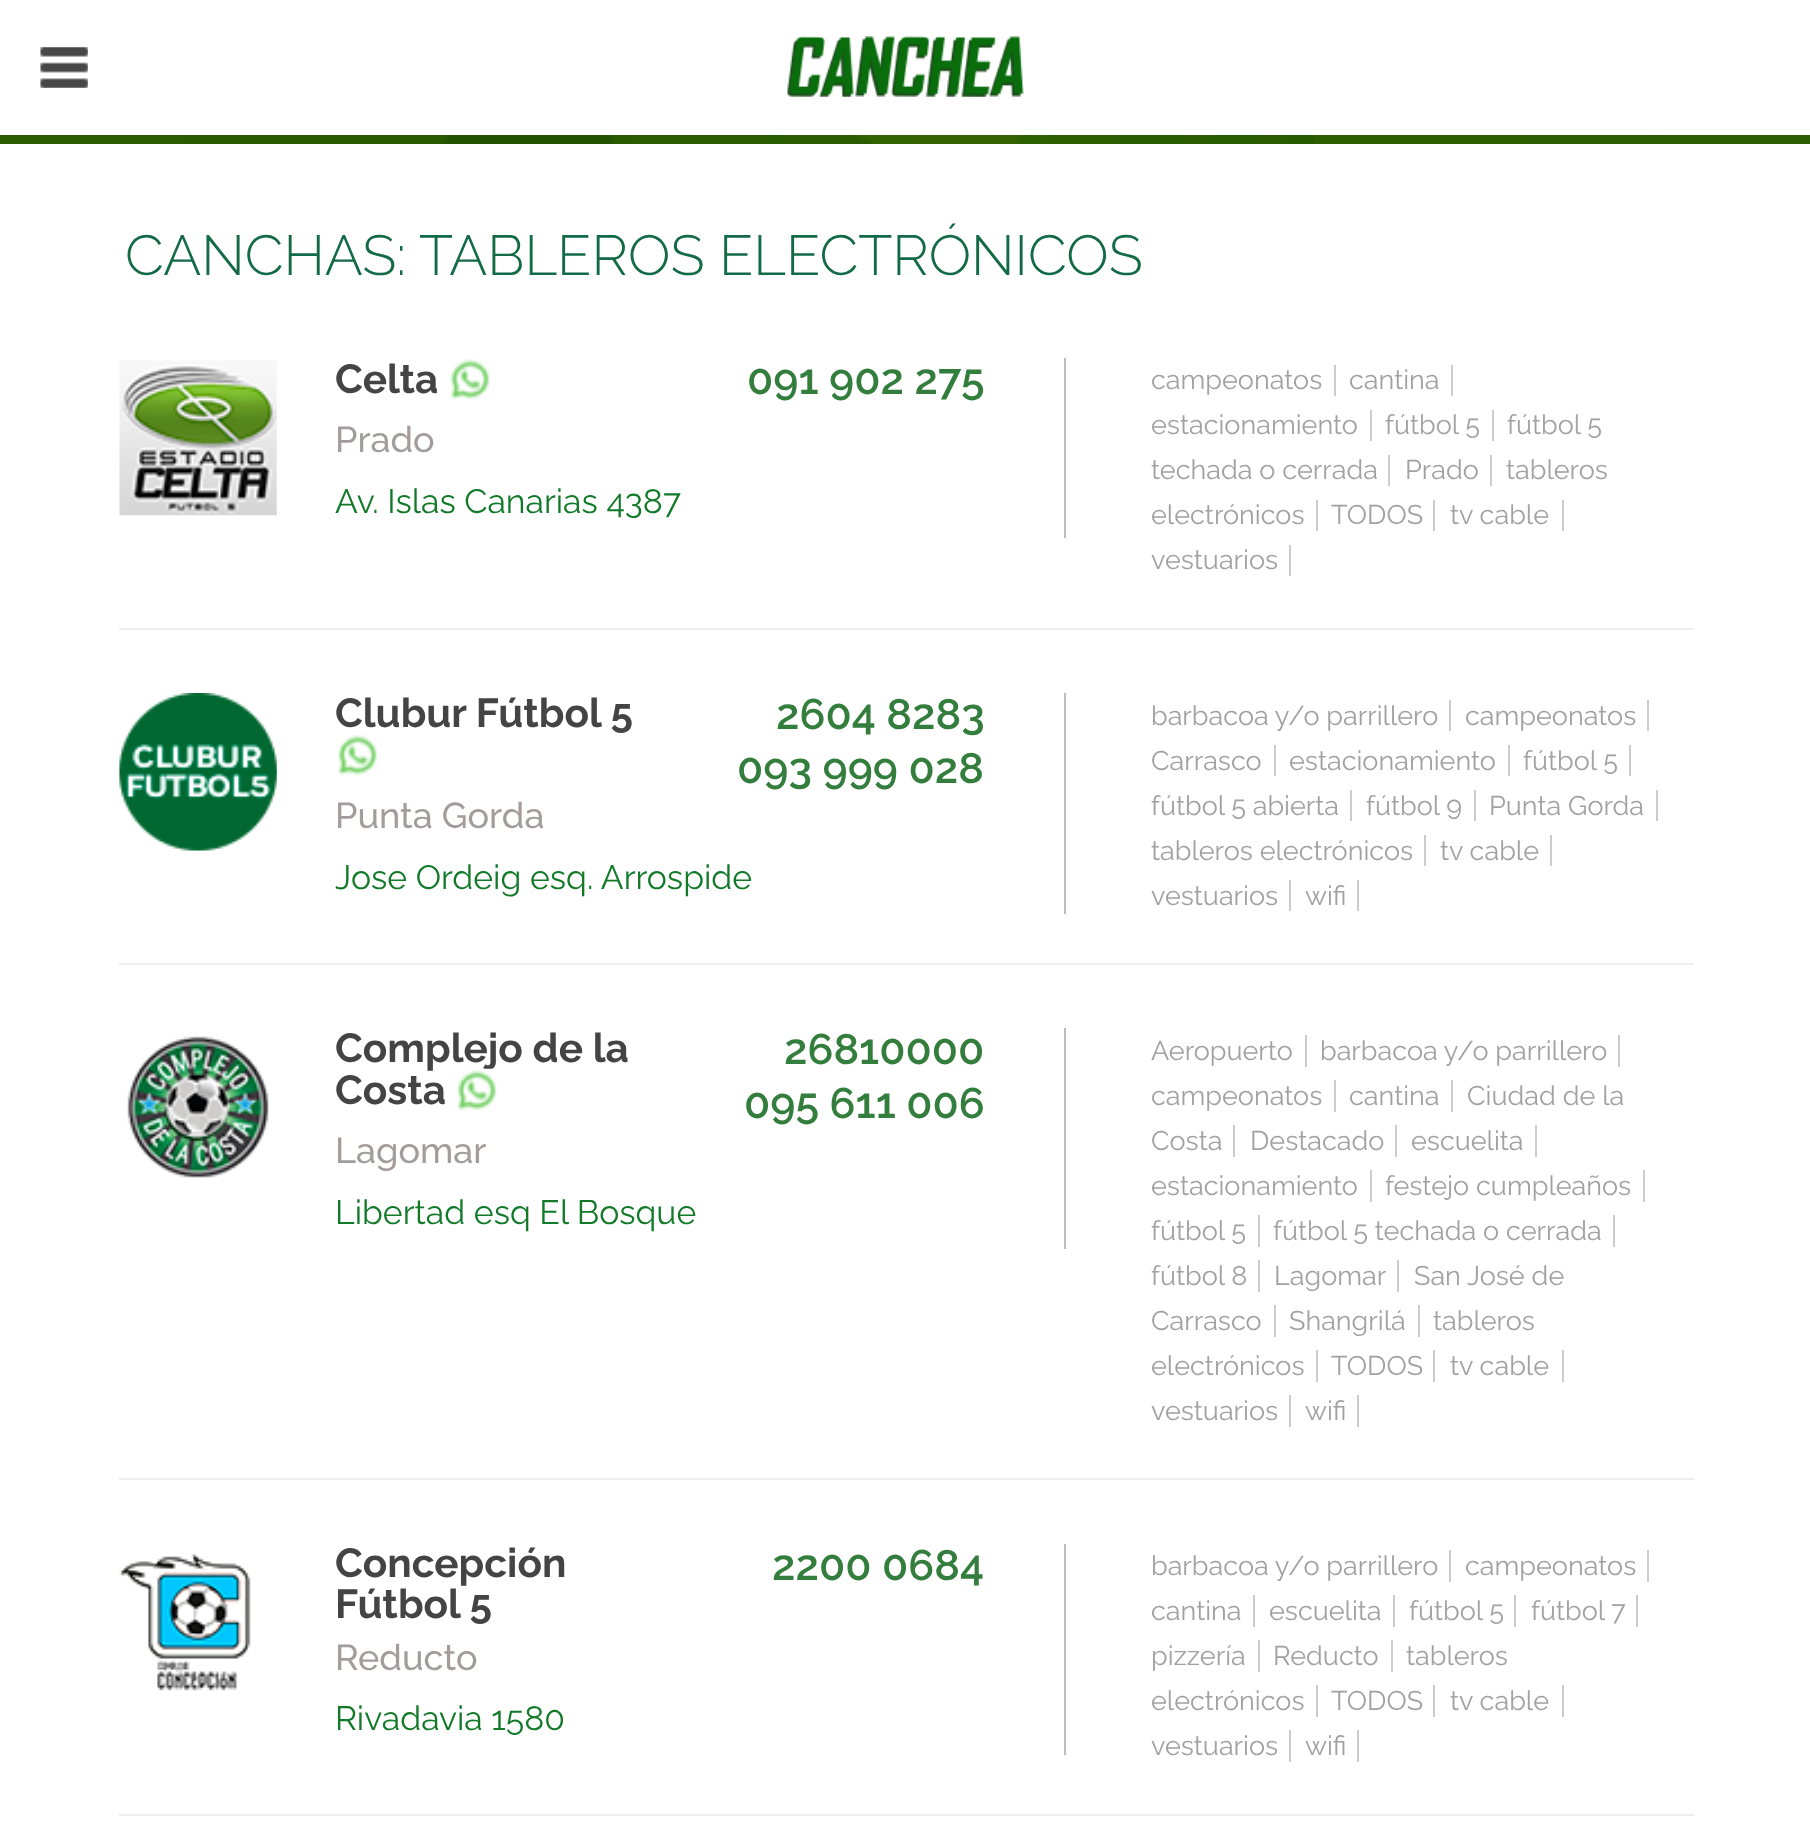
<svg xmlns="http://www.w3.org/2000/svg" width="1810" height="1831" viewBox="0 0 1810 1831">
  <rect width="100%" height="100%" fill="rgb(255,255,255)"/>
  <image x="40" y="47" width="48" height="41" href="pic1.png"/>
  <image x="787" y="36" width="237" height="61" href="pic2.png"/>
  <image x="0" y="135" width="1810" height="9" href="pic3.png"/>
  <text x="125" y="275" font-family="Raleway" font-size="56.25" font-weight="300" fill="rgb(19,106,70)">CANCHAS: TABLEROS ELECTRÓNICOS</text>
  <rect x="119" y="628" width="1575" height="2" fill="rgb(238,238,238)"/>
  <rect x="1064" y="358" width="2" height="180" fill="rgb(189,189,189)"/>
  <image x="119" y="360" width="158" height="156" href="pic4.png"/>
  <text x="335" y="393" font-family="Raleway" font-size="40.5" font-weight="bold" fill="rgb(68,68,68)">Celta</text>
  <image x="449" y="359" width="42" height="42" href="pic5.png"/>
  <text x="335" y="452" font-family="Raleway" font-size="36" font-weight="500" fill="rgb(162,156,154)">Prado</text>
  <text x="747" y="394" font-family="Raleway" font-size="42.75" font-weight="600" fill="rgb(51,125,61)">091 902 275</text>
  <text x="335" y="513" font-family="Raleway" font-size="33.75" fill="rgb(17,121,40)">Av. Islas Canarias 4387</text>
  <text x="1151" y="389" font-family="Raleway" font-size="27" fill="rgb(161,161,161)">campeonatos</text>
  <rect x="1334" y="365" width="2" height="31" fill="rgb(204,204,204)"/>
  <text x="1349" y="389" font-family="Raleway" font-size="27" fill="rgb(161,161,161)">cantina</text>
  <rect x="1451" y="365" width="2" height="31" fill="rgb(204,204,204)"/>
  <text x="1151" y="434" font-family="Raleway" font-size="27" fill="rgb(161,161,161)">estacionamiento</text>
  <rect x="1370" y="410" width="2" height="31" fill="rgb(204,204,204)"/>
  <text x="1385" y="434" font-family="Raleway" font-size="27" fill="rgb(161,161,161)">fútbol 5</text>
  <rect x="1492" y="410" width="2" height="31" fill="rgb(204,204,204)"/>
  <g font-family="Raleway" font-size="27" fill="rgb(161,161,161)">
    <text x="1507" y="434">fútbol 5</text>
    <text x="1151" y="479">techada o cerrada</text>
  </g>
  <rect x="1388" y="455" width="2" height="31" fill="rgb(204,204,204)"/>
  <text x="1405" y="479" font-family="Raleway" font-size="27" fill="rgb(161,161,161)">Prado</text>
  <rect x="1490" y="455" width="2" height="31" fill="rgb(204,204,204)"/>
  <g font-family="Raleway" font-size="27" fill="rgb(161,161,161)">
    <text x="1506" y="479">tableros</text>
    <text x="1151" y="524">electrónicos</text>
  </g>
  <rect x="1316" y="500" width="2" height="31" fill="rgb(204,204,204)"/>
  <text x="1331" y="524" font-family="Raleway" font-size="27" fill="rgb(161,161,161)">TODOS</text>
  <rect x="1433" y="500" width="2" height="31" fill="rgb(204,204,204)"/>
  <text x="1450" y="524" font-family="Raleway" font-size="27" fill="rgb(161,161,161)">tv cable</text>
  <rect x="1562" y="500" width="2" height="31" fill="rgb(204,204,204)"/>
  <text x="1151" y="569" font-family="Raleway" font-size="27" fill="rgb(161,161,161)">vestuarios</text>
  <rect x="1289" y="545" width="2" height="31" fill="rgb(204,204,204)"/>
  <rect x="119" y="963" width="1575" height="2" fill="rgb(238,238,238)"/>
  <rect x="1064" y="693" width="2" height="221" fill="rgb(189,189,189)"/>
  <image x="119" y="693" width="158" height="158" href="pic6.png"/>
  <text x="335" y="727" font-family="Raleway" font-size="40.5" font-weight="bold" fill="rgb(68,68,68)">Clubur Fútbol 5</text>
  <image x="337" y="735" width="41" height="41" href="pic7.png"/>
  <text x="335" y="828" font-family="Raleway" font-size="36" font-weight="500" fill="rgb(162,156,154)">Punta Gorda</text>
  <g font-family="Raleway" font-size="42.75" font-weight="600" fill="rgb(51,125,61)">
    <text x="776" y="729">2604 8283</text>
    <text x="737" y="783">093 999 028</text>
  </g>
  <text x="335" y="889" font-family="Raleway" font-size="33.75" fill="rgb(17,121,40)">Jose Ordeig esq. Arrospide</text>
  <text x="1151" y="725" font-family="Raleway" font-size="27" fill="rgb(161,161,161)">barbacoa y/o parrillero</text>
  <rect x="1449" y="700" width="2" height="31" fill="rgb(204,204,204)"/>
  <text x="1465" y="725" font-family="Raleway" font-size="27" fill="rgb(161,161,161)">campeonatos</text>
  <rect x="1647" y="700" width="2" height="31" fill="rgb(204,204,204)"/>
  <text x="1151" y="770" font-family="Raleway" font-size="27" fill="rgb(161,161,161)">Carrasco</text>
  <rect x="1274" y="745" width="2" height="31" fill="rgb(204,204,204)"/>
  <text x="1289" y="770" font-family="Raleway" font-size="27" fill="rgb(161,161,161)">estacionamiento</text>
  <rect x="1508" y="745" width="2" height="31" fill="rgb(204,204,204)"/>
  <text x="1523" y="770" font-family="Raleway" font-size="27" fill="rgb(161,161,161)">fútbol 5</text>
  <rect x="1629" y="745" width="2" height="31" fill="rgb(204,204,204)"/>
  <text x="1151" y="815" font-family="Raleway" font-size="27" fill="rgb(161,161,161)">fútbol 5 abierta</text>
  <rect x="1350" y="790" width="2" height="31" fill="rgb(204,204,204)"/>
  <text x="1366" y="815" font-family="Raleway" font-size="27" fill="rgb(161,161,161)">fútbol 9</text>
  <rect x="1474" y="790" width="2" height="31" fill="rgb(204,204,204)"/>
  <text x="1489" y="815" font-family="Raleway" font-size="27" fill="rgb(161,161,161)">Punta Gorda</text>
  <rect x="1656" y="790" width="2" height="31" fill="rgb(204,204,204)"/>
  <text x="1151" y="860" font-family="Raleway" font-size="27" fill="rgb(161,161,161)">tableros electrónicos</text>
  <rect x="1424" y="835" width="2" height="31" fill="rgb(204,204,204)"/>
  <text x="1440" y="860" font-family="Raleway" font-size="27" fill="rgb(161,161,161)">tv cable</text>
  <rect x="1550" y="835" width="2" height="31" fill="rgb(204,204,204)"/>
  <text x="1151" y="905" font-family="Raleway" font-size="27" fill="rgb(161,161,161)">vestuarios</text>
  <rect x="1289" y="880" width="2" height="31" fill="rgb(204,204,204)"/>
  <text x="1305" y="905" font-family="Raleway" font-size="27" fill="rgb(161,161,161)">wifi</text>
  <rect x="1357" y="880" width="2" height="31" fill="rgb(204,204,204)"/>
  <rect x="119" y="1478" width="1575" height="2" fill="rgb(238,238,238)"/>
  <rect x="1064" y="1028" width="2" height="221" fill="rgb(189,189,189)"/>
  <image x="127" y="1036" width="142" height="142" href="pic8.png"/>
  <g font-family="Raleway" font-size="40.5" font-weight="bold" fill="rgb(68,68,68)">
    <text>
      <tspan x="335" y="1062">Complejo de la</tspan>
      <tspan x="335" y="1104">Costa</tspan>
    </text>
  </g>
  <image x="456" y="1068" width="42" height="44" href="pic9.png"/>
  <text x="335" y="1163" font-family="Raleway" font-size="36" font-weight="500" fill="rgb(162,156,154)">Lagomar</text>
  <g font-family="Raleway" font-size="42.75" font-weight="600" fill="rgb(51,125,61)">
    <text x="784" y="1064">26810000</text>
    <text x="744" y="1118">095 611 006</text>
  </g>
  <text x="335" y="1224" font-family="Raleway" font-size="33.75" fill="rgb(17,121,40)">Libertad esq El Bosque</text>
  <text x="1151" y="1060" font-family="Raleway" font-size="27" fill="rgb(161,161,161)">Aeropuerto</text>
  <rect x="1305" y="1035" width="2" height="32" fill="rgb(204,204,204)"/>
  <text x="1320" y="1060" font-family="Raleway" font-size="27" fill="rgb(161,161,161)">barbacoa y/o parrillero</text>
  <rect x="1618" y="1035" width="2" height="32" fill="rgb(204,204,204)"/>
  <text x="1151" y="1105" font-family="Raleway" font-size="27" fill="rgb(161,161,161)">campeonatos</text>
  <rect x="1334" y="1080" width="2" height="32" fill="rgb(204,204,204)"/>
  <text x="1349" y="1105" font-family="Raleway" font-size="27" fill="rgb(161,161,161)">cantina</text>
  <rect x="1451" y="1080" width="2" height="32" fill="rgb(204,204,204)"/>
  <g font-family="Raleway" font-size="27" fill="rgb(161,161,161)">
    <text x="1467" y="1105">Ciudad de la</text>
    <text x="1151" y="1150">Costa</text>
  </g>
  <rect x="1233" y="1125" width="2" height="32" fill="rgb(204,204,204)"/>
  <text x="1250" y="1150" font-family="Raleway" font-size="27" fill="rgb(161,161,161)">Destacado</text>
  <rect x="1395" y="1125" width="2" height="32" fill="rgb(204,204,204)"/>
  <text x="1411" y="1150" font-family="Raleway" font-size="27" fill="rgb(161,161,161)">escuelita</text>
  <rect x="1535" y="1125" width="2" height="32" fill="rgb(204,204,204)"/>
  <text x="1151" y="1195" font-family="Raleway" font-size="27" fill="rgb(161,161,161)">estacionamiento</text>
  <rect x="1370" y="1170" width="2" height="32" fill="rgb(204,204,204)"/>
  <text x="1385" y="1195" font-family="Raleway" font-size="27" fill="rgb(161,161,161)">festejo cumpleaños</text>
  <rect x="1643" y="1170" width="2" height="32" fill="rgb(204,204,204)"/>
  <text x="1151" y="1240" font-family="Raleway" font-size="27" fill="rgb(161,161,161)">fútbol 5</text>
  <rect x="1258" y="1215" width="2" height="32" fill="rgb(204,204,204)"/>
  <text x="1273" y="1240" font-family="Raleway" font-size="27" fill="rgb(161,161,161)">fútbol 5 techada o cerrada</text>
  <rect x="1613" y="1215" width="2" height="32" fill="rgb(204,204,204)"/>
  <text x="1151" y="1285" font-family="Raleway" font-size="27" fill="rgb(161,161,161)">fútbol 8</text>
  <rect x="1258" y="1260" width="2" height="32" fill="rgb(204,204,204)"/>
  <text x="1274" y="1285" font-family="Raleway" font-size="27" fill="rgb(161,161,161)">Lagomar</text>
  <rect x="1397" y="1260" width="2" height="32" fill="rgb(204,204,204)"/>
  <g font-family="Raleway" font-size="27" fill="rgb(161,161,161)">
    <text x="1414" y="1285">San José de</text>
    <text x="1151" y="1330">Carrasco</text>
  </g>
  <rect x="1274" y="1305" width="2" height="32" fill="rgb(204,204,204)"/>
  <text x="1289" y="1330" font-family="Raleway" font-size="27" fill="rgb(161,161,161)">Shangrilá</text>
  <rect x="1418" y="1305" width="2" height="32" fill="rgb(204,204,204)"/>
  <g font-family="Raleway" font-size="27" fill="rgb(161,161,161)">
    <text x="1433" y="1330">tableros</text>
    <text x="1151" y="1375">electrónicos</text>
  </g>
  <rect x="1316" y="1350" width="2" height="32" fill="rgb(204,204,204)"/>
  <text x="1331" y="1375" font-family="Raleway" font-size="27" fill="rgb(161,161,161)">TODOS</text>
  <rect x="1433" y="1350" width="2" height="32" fill="rgb(204,204,204)"/>
  <text x="1450" y="1375" font-family="Raleway" font-size="27" fill="rgb(161,161,161)">tv cable</text>
  <rect x="1562" y="1350" width="2" height="32" fill="rgb(204,204,204)"/>
  <text x="1151" y="1420" font-family="Raleway" font-size="27" fill="rgb(161,161,161)">vestuarios</text>
  <rect x="1289" y="1395" width="2" height="32" fill="rgb(204,204,204)"/>
  <text x="1305" y="1420" font-family="Raleway" font-size="27" fill="rgb(161,161,161)">wifi</text>
  <rect x="1357" y="1395" width="2" height="32" fill="rgb(204,204,204)"/>
  <rect x="119" y="1814" width="1575" height="2" fill="rgb(238,238,238)"/>
  <rect x="1064" y="1544" width="2" height="211" fill="rgb(189,189,189)"/>
  <image x="119" y="1553" width="132" height="138" href="pic10.png"/>
  <g font-family="Raleway" font-size="40.5" font-weight="bold" fill="rgb(68,68,68)">
    <text>
      <tspan x="335" y="1577">Concepción</tspan>
      <tspan x="335" y="1618">Fútbol 5</tspan>
    </text>
  </g>
  <text x="335" y="1670" font-family="Raleway" font-size="36" font-weight="500" fill="rgb(162,156,154)">Reducto</text>
  <text x="772" y="1580" font-family="Raleway" font-size="42.75" font-weight="600" fill="rgb(51,125,61)">2200 0684</text>
  <text x="335" y="1730" font-family="Raleway" font-size="33.75" fill="rgb(17,121,40)">Rivadavia 1580</text>
  <text x="1151" y="1575" font-family="Raleway" font-size="27" fill="rgb(161,161,161)">barbacoa y/o parrillero</text>
  <rect x="1449" y="1550" width="2" height="32" fill="rgb(204,204,204)"/>
  <text x="1465" y="1575" font-family="Raleway" font-size="27" fill="rgb(161,161,161)">campeonatos</text>
  <rect x="1647" y="1550" width="2" height="32" fill="rgb(204,204,204)"/>
  <text x="1151" y="1620" font-family="Raleway" font-size="27" fill="rgb(161,161,161)">cantina</text>
  <rect x="1253" y="1595" width="2" height="32" fill="rgb(204,204,204)"/>
  <text x="1269" y="1620" font-family="Raleway" font-size="27" fill="rgb(161,161,161)">escuelita</text>
  <rect x="1393" y="1595" width="2" height="32" fill="rgb(204,204,204)"/>
  <text x="1409" y="1620" font-family="Raleway" font-size="27" fill="rgb(161,161,161)">fútbol 5</text>
  <rect x="1514" y="1595" width="2" height="32" fill="rgb(204,204,204)"/>
  <text x="1531" y="1620" font-family="Raleway" font-size="27" fill="rgb(161,161,161)">fútbol 7</text>
  <rect x="1636" y="1595" width="2" height="32" fill="rgb(204,204,204)"/>
  <text x="1151" y="1665" font-family="Raleway" font-size="27" fill="rgb(161,161,161)">pizzería</text>
  <rect x="1258" y="1640" width="2" height="32" fill="rgb(204,204,204)"/>
  <text x="1273" y="1665" font-family="Raleway" font-size="27" fill="rgb(161,161,161)">Reducto</text>
  <rect x="1391" y="1640" width="2" height="32" fill="rgb(204,204,204)"/>
  <g font-family="Raleway" font-size="27" fill="rgb(161,161,161)">
    <text x="1406" y="1665">tableros</text>
    <text x="1151" y="1710">electrónicos</text>
  </g>
  <rect x="1316" y="1685" width="2" height="32" fill="rgb(204,204,204)"/>
  <text x="1331" y="1710" font-family="Raleway" font-size="27" fill="rgb(161,161,161)">TODOS</text>
  <rect x="1433" y="1685" width="2" height="32" fill="rgb(204,204,204)"/>
  <text x="1450" y="1710" font-family="Raleway" font-size="27" fill="rgb(161,161,161)">tv cable</text>
  <rect x="1562" y="1685" width="2" height="32" fill="rgb(204,204,204)"/>
  <text x="1151" y="1755" font-family="Raleway" font-size="27" fill="rgb(161,161,161)">vestuarios</text>
  <rect x="1289" y="1730" width="2" height="32" fill="rgb(204,204,204)"/>
  <text x="1305" y="1755" font-family="Raleway" font-size="27" fill="rgb(161,161,161)">wifi</text>
  <rect x="1357" y="1730" width="2" height="32" fill="rgb(204,204,204)"/>
</svg>
